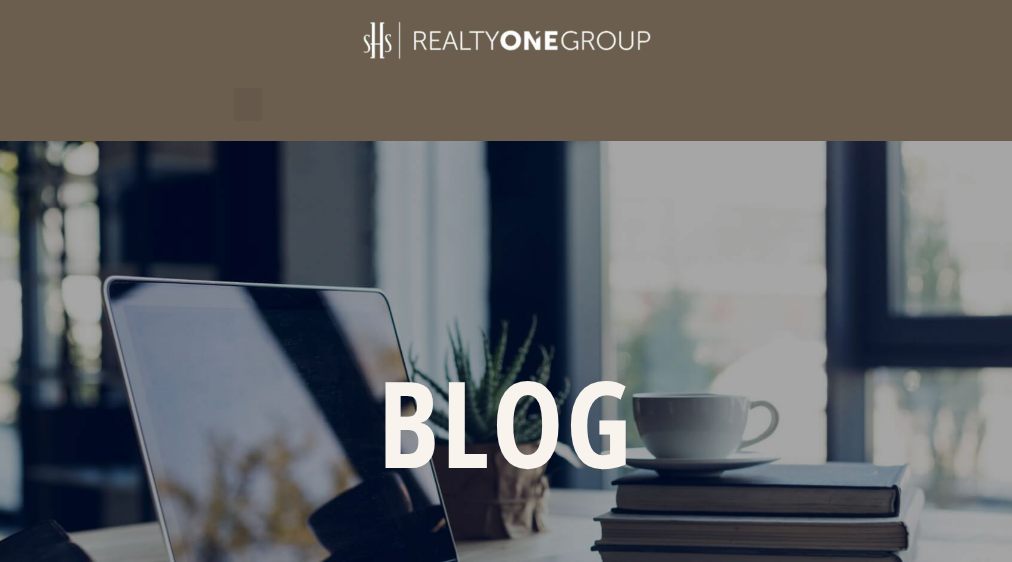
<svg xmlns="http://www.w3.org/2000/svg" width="1012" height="562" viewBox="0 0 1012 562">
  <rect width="100%" height="100%" fill="rgb(255,255,255)"/>
  <rect x="0" y="0" width="1012" height="141" fill="rgb(107,94,79)"/>
  <image x="363" y="21" width="288" height="39" href="pic1.png"/>
  <rect x="234" y="88" width="28" height="33" rx="3" fill="rgb(102,89,75)"/>
  <image x="0" y="141" width="1012" height="421" href="pic2.png"/>
  <text x="378" y="468" font-family="Open Sans Condensed" font-size="120" font-weight="bold" letter-spacing="2.5" fill="rgb(248,244,237)">BLOG</text>
</svg>
